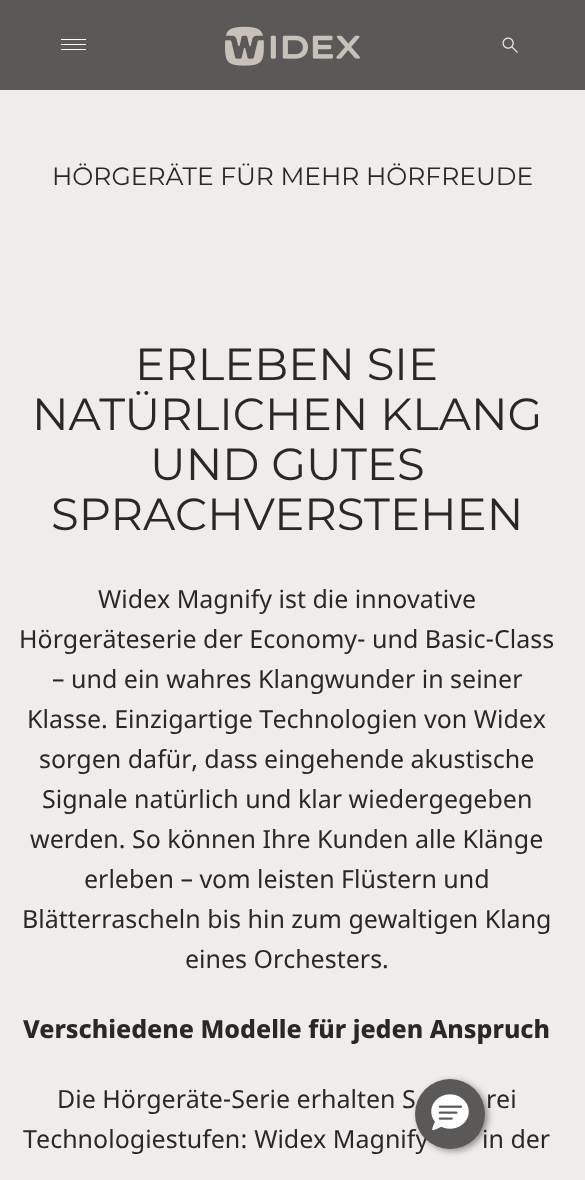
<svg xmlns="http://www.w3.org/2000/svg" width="585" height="1180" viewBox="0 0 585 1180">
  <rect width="100%" height="100%" fill="rgb(239,237,236)"/>
  <rect x="0" y="0" width="585" height="90" fill="rgb(91,89,88)"/>
  <rect x="61" y="44" width="25" height="1" fill="rgb(255,255,255)"/>
  <rect x="61" y="39" width="25" height="1" fill="rgb(255,255,255)"/>
  <rect x="61" y="49" width="25" height="1" fill="rgb(255,255,255)"/>
  <image x="225" y="26" width="135" height="40" href="pic1.png"/>
  <image x="502" y="37" width="16" height="16" href="pic2.png"/>
  <text x="52" y="185" font-family="Montserrat" font-size="25" fill="rgb(42,40,38)">HÖRGERÄTE FÜR MEHR HÖRFREUDE</text>
  <g font-family="Montserrat" font-size="45" fill="rgb(42,40,38)">
    <text x="135" y="380">ERLEBEN SIE</text>
    <text x="32" y="430">NATÜRLICHEN KLANG</text>
    <text x="150" y="480">UND GUTES</text>
    <text x="51" y="530">SPRACHVERSTEHEN</text>
  </g>
  <g font-family="Noto Sans" font-size="25" fill="rgb(42,40,38)">
    <text x="98" y="608">Widex Magnify ist die innovative</text>
    <text x="19" y="648">Hörgeräteserie der Economy- und Basic-Class</text>
    <text x="52" y="688">– und ein wahres Klangwunder in seiner</text>
    <text x="27" y="728">Klasse. Einzigartige Technologien von Widex</text>
    <text x="39" y="768">sorgen dafür, dass eingehende akustische</text>
    <text x="42" y="808">Signale natürlich und klar wiedergegeben</text>
    <text x="30" y="848">werden. So können Ihre Kunden alle Klänge</text>
    <text x="84" y="888">erleben – vom leisten Flüstern und</text>
    <text x="22" y="928">Blätterrascheln bis hin zum gewaltigen Klang</text>
    <text x="185" y="968">eines Orchesters.</text>
  </g>
  <text x="23" y="1038" font-family="Noto Sans" font-size="25" font-weight="800" fill="rgb(42,40,38)">Verschiedene Modelle für jeden Anspruch</text>
  <g font-family="Noto Sans" font-size="25" fill="rgb(42,40,38)">
    <text x="57" y="1108">Die Hörgeräte-Serie erhalten S</text>
    <text x="486" y="1108">rei</text>
    <text x="23" y="1148">Technologiestufen: Widex Magnify</text>
    <text x="482" y="1148">in der</text>
  </g>
  <rect x="418" y="1081" width="70" height="70" rx="35" fill="rgba(45,45,45,0.5)" filter="blur(3px)"/>
  <circle cx="450" cy="1114" r="35" fill="rgb(91,89,88)"/>
  <image x="431" y="1094" width="38" height="37" href="pic3.png"/>
</svg>
